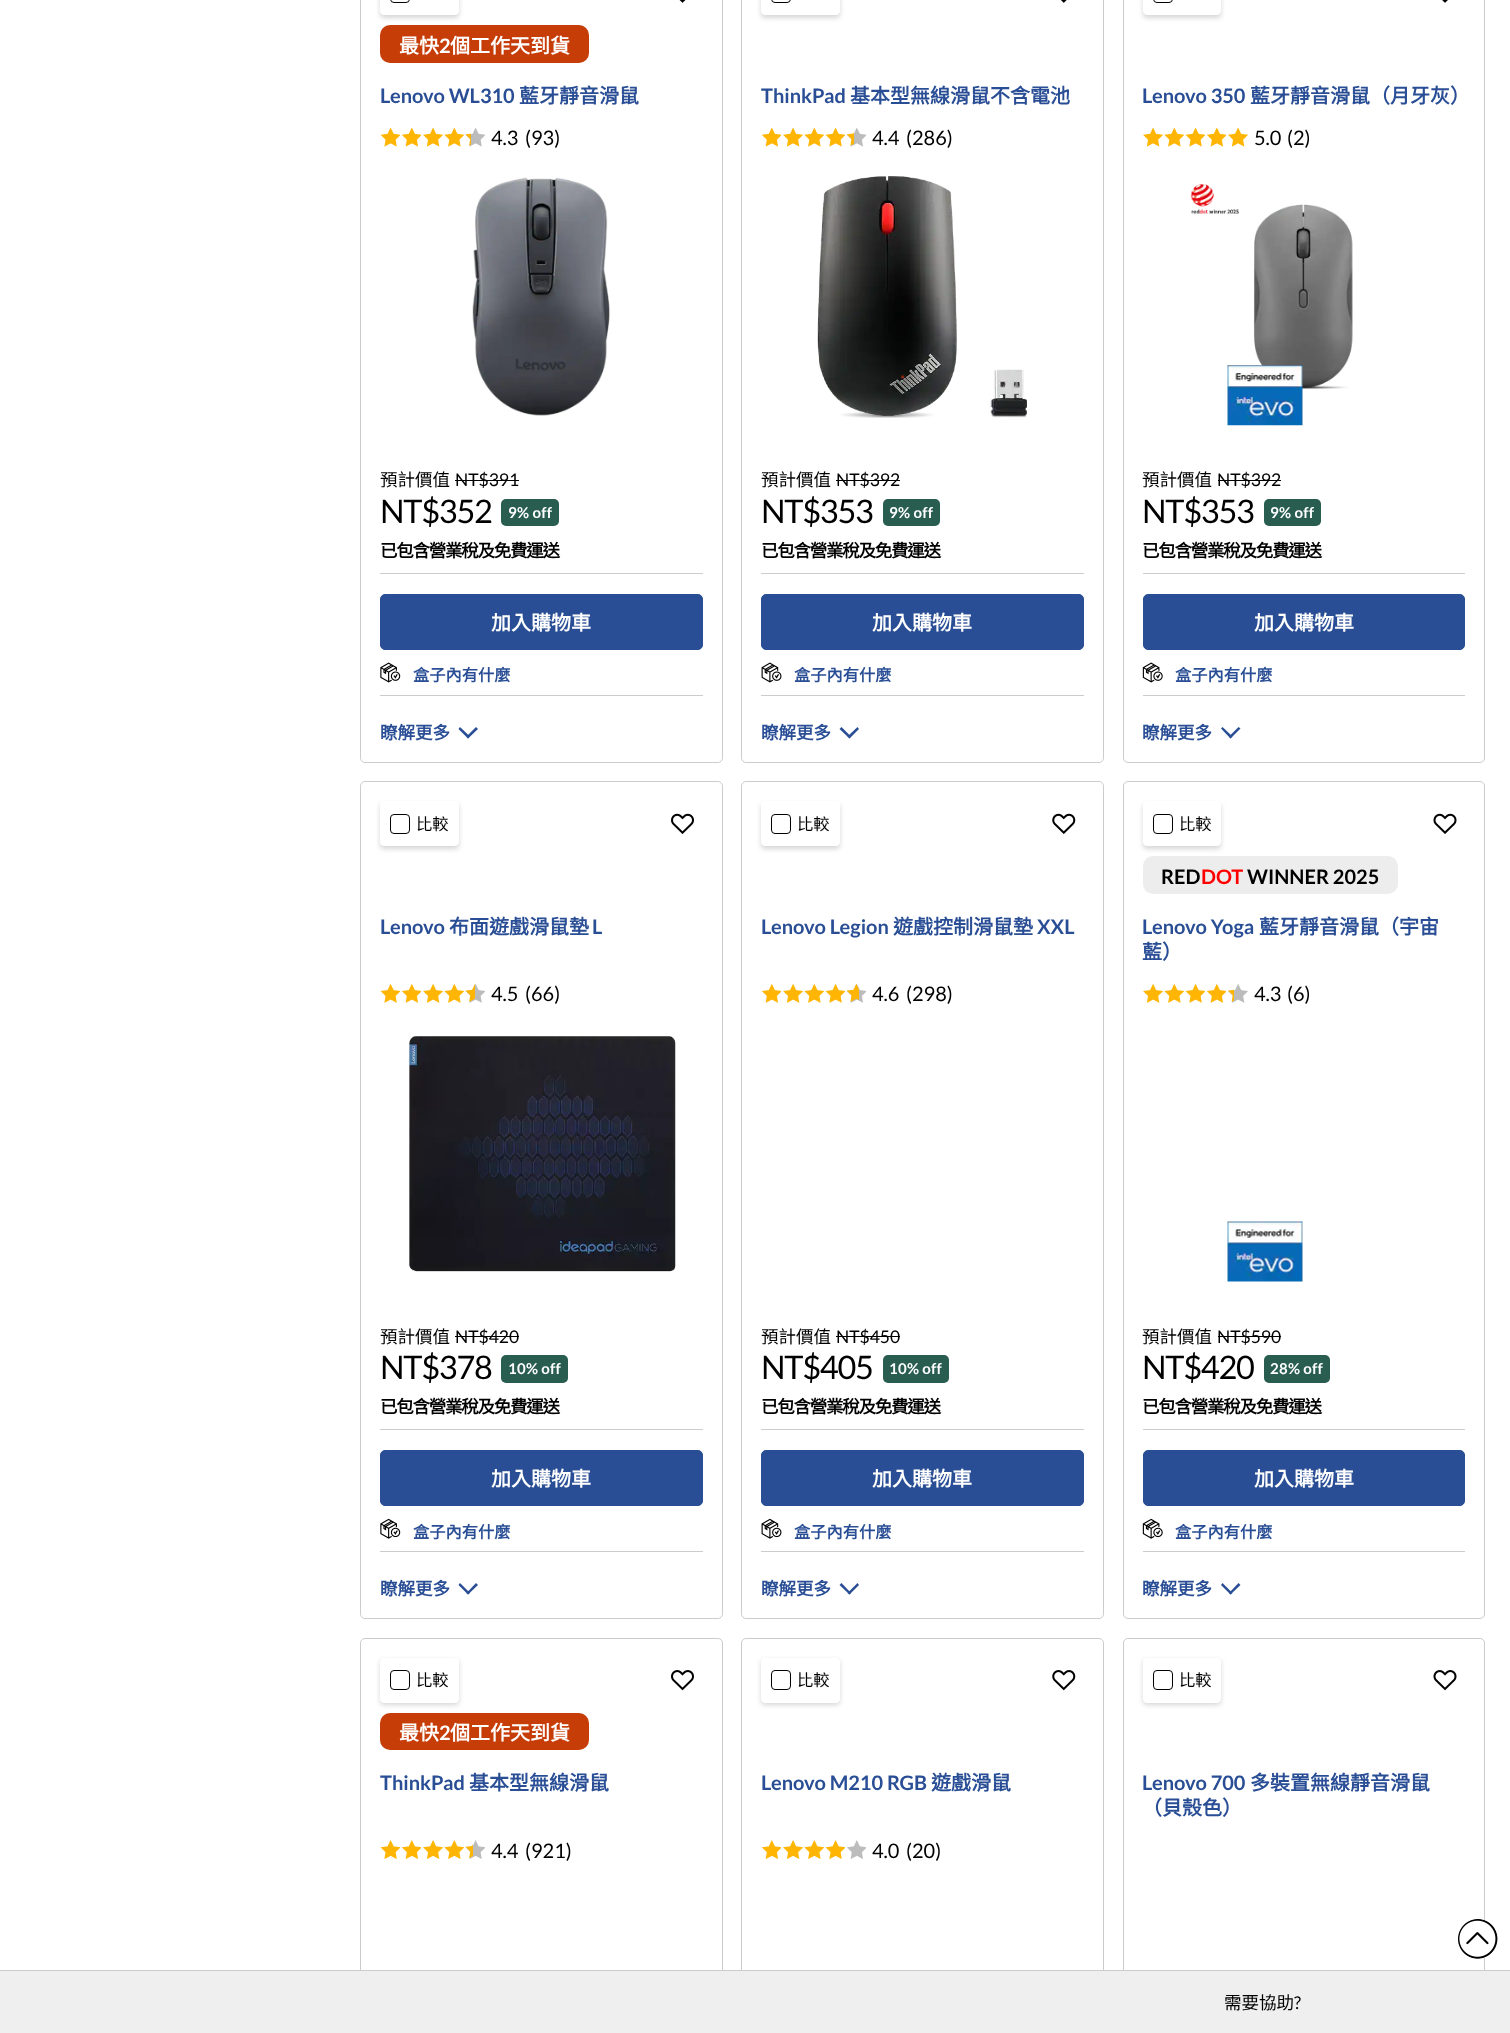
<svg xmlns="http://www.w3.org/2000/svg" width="1510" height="2033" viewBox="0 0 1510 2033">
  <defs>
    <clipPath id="clip1"><path d="M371 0H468V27H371ZM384-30H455C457-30 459-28 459-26V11C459 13 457 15 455 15H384C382 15 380 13 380 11V-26C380-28 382-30 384-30Z" clip-rule="evenodd"/></clipPath>
    <clipPath id="clip2"><path d="M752 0H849V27H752ZM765-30H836C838-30 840-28 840-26V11C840 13 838 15 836 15H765C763 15 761 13 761 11V-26C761-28 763-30 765-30Z" clip-rule="evenodd"/></clipPath>
    <clipPath id="clip3"><path d="M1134 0H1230V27H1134ZM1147-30H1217C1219-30 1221-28 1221-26V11C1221 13 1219 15 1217 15H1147C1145 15 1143 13 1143 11V-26C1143-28 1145-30 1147-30Z" clip-rule="evenodd"/></clipPath>
    <clipPath id="clip4"><path d="M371 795H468V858H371ZM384 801H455C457 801 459 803 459 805V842C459 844 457 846 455 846H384C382 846 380 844 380 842V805C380 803 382 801 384 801Z" clip-rule="evenodd"/></clipPath>
    <clipPath id="clip5"><path d="M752 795H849V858H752ZM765 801H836C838 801 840 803 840 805V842C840 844 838 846 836 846H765C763 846 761 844 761 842V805C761 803 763 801 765 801Z" clip-rule="evenodd"/></clipPath>
    <clipPath id="clip6"><path d="M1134 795H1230V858H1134ZM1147 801H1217C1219 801 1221 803 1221 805V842C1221 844 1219 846 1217 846H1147C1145 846 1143 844 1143 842V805C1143 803 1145 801 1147 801Z" clip-rule="evenodd"/></clipPath>
    <clipPath id="clip7"><path d="M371 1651H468V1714H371ZM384 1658H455C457 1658 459 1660 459 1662V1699C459 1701 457 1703 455 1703H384C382 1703 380 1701 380 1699V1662C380 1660 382 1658 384 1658Z" clip-rule="evenodd"/></clipPath>
    <clipPath id="clip8"><path d="M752 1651H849V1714H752ZM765 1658H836C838 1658 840 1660 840 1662V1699C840 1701 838 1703 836 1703H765C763 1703 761 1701 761 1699V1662C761 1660 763 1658 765 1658Z" clip-rule="evenodd"/></clipPath>
    <clipPath id="clip9"><path d="M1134 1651H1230V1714H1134ZM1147 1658H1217C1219 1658 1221 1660 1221 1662V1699C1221 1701 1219 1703 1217 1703H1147C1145 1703 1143 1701 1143 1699V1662C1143 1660 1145 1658 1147 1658Z" clip-rule="evenodd"/></clipPath>
  </defs>
  <rect width="100%" height="100%" fill="rgb(255,255,255)"/>
  <rect x="360.5" y="-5.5" width="362" height="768" rx="4.5" fill="none" stroke="rgb(204,204,204)"/>
  <g clip-path="url(#clip1)">
    <rect x="380" y="-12" width="79" height="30" rx="4" fill="rgba(0,0,0,0.16)" filter="blur(2.5px)"/>
  </g>
  <rect x="390.5" y="-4.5" width="19" height="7" rx="3.5" fill="none" stroke="rgb(0,0,0)"/>
  <image x="679" y="0" width="7" height="3" href="pic1.png"/>
  <rect x="380" y="25" width="209" height="38" rx="10" fill="rgb(199,61,8)"/>
  <text x="399" y="53" font-family="Noto Sans CJK TC" font-size="20" font-weight="bold" fill="rgb(255,255,255)">最快</text>
  <text x="439" y="53" font-family="Lato" font-size="20" font-weight="bold" fill="rgb(255,255,255)">2</text>
  <text x="450" y="53" font-family="Noto Sans CJK TC" font-size="20" font-weight="bold" fill="rgb(255,255,255)">個工作天到貨</text>
  <text x="380" y="103" font-family="Lato" font-size="20" font-weight="bold" fill="rgb(41,78,149)">Lenovo WL310</text>
  <text x="519" y="103" font-family="Noto Sans CJK TC" font-size="20" font-weight="bold" fill="rgb(41,78,149)">藍牙靜音滑鼠</text>
  <image x="380" y="128" width="20" height="19" href="pic2.png"/>
  <image x="401" y="128" width="20" height="19" href="pic3.png"/>
  <image x="423" y="128" width="20" height="19" href="pic4.png"/>
  <image x="444" y="128" width="20" height="19" href="pic5.png"/>
  <image x="465" y="128" width="20" height="19" href="pic6.png"/>
  <image x="465" y="133" width="6" height="13" href="pic7.png"/>
  <g font-family="Lato" font-size="20" fill="rgb(0,0,0)">
    <text x="491" y="145">4.3</text>
    <text x="525" y="145">(93)</text>
  </g>
  <image x="472" y="177" width="138" height="239" href="pic8.png"/>
  <text x="380" y="486" font-family="Noto Sans CJK TC" font-size="17.5" fill="rgb(0,0,0)">預計價值</text>
  <text x="455" y="486" font-family="Lato" font-size="17.5" fill="rgb(0,0,0)">NT$391</text>
  <rect x="455" y="480" width="64" height="1" fill="rgb(0,0,0)"/>
  <rect x="380" y="573" width="323" height="1" fill="rgb(204,204,204)"/>
  <text x="380" y="523" font-family="Lato" font-size="32.5" letter-spacing="-1.25" fill="rgb(0,0,0)">NT$352</text>
  <rect x="501" y="499" width="58" height="27" rx="5" fill="rgb(40,93,80)"/>
  <text x="508" y="518" font-family="Lato" font-size="15" font-weight="bold" letter-spacing="0.25" fill="rgb(255,255,255)">9% off</text>
  <text x="380" y="557" font-family="Noto Sans CJK TC" font-size="17.5" font-weight="bold" letter-spacing="-1.25" fill="rgb(0,0,0)">已包含營業稅及免費運送</text>
  <rect x="380.5" y="594.5" width="322" height="55" rx="4.5" fill="rgb(41,78,149)" stroke="rgb(41,78,149)"/>
  <text x="491" y="630" font-family="Noto Sans CJK TC" font-size="20" font-weight="bold" fill="rgb(255,255,255)">加入購物車</text>
  <rect x="380" y="695" width="323" height="1" fill="rgb(204,204,204)"/>
  <image x="380" y="662" width="21" height="21" href="pic9.png"/>
  <text x="413" y="681" font-family="Noto Sans CJK TC" font-size="16.25" font-weight="bold" fill="rgb(41,78,149)">盒子內有什麼</text>
  <text x="380" y="739" font-family="Noto Sans CJK TC" font-size="17.5" font-weight="bold" fill="rgb(41,78,149)">瞭解更多</text>
  <path d="M468 738.5L458.5 729L460 727L470 736.5Z" fill="rgb(41,78,149)"/>
  <path d="M468 738.5L466.5 736.5L476 727L478 729Z" fill="rgb(41,78,149)"/>
  <rect x="741.5" y="-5.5" width="362" height="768" rx="4.5" fill="none" stroke="rgb(204,204,204)"/>
  <g clip-path="url(#clip2)">
    <rect x="761" y="-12" width="79" height="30" rx="4" fill="rgba(0,0,0,0.16)" filter="blur(2.5px)"/>
  </g>
  <rect x="771.5" y="-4.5" width="19" height="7" rx="3.5" fill="none" stroke="rgb(0,0,0)"/>
  <image x="1061" y="0" width="6" height="3" href="pic10.png"/>
  <text x="761" y="103" font-family="Lato" font-size="20" font-weight="bold" fill="rgb(41,78,149)">ThinkPad</text>
  <text x="850" y="103" font-family="Noto Sans CJK TC" font-size="20" font-weight="bold" fill="rgb(41,78,149)">基本型無線滑鼠不含電池</text>
  <image x="761" y="128" width="20" height="19" href="pic3.png"/>
  <image x="783" y="128" width="20" height="19" href="pic4.png"/>
  <image x="804" y="128" width="20" height="19" href="pic5.png"/>
  <image x="825" y="128" width="20" height="19" href="pic2.png"/>
  <image x="847" y="128" width="19" height="19" href="pic11.png"/>
  <image x="846" y="132" width="8" height="14" href="pic12.png"/>
  <g font-family="Lato" font-size="20" fill="rgb(0,0,0)">
    <text x="872" y="145">4.4</text>
    <text x="906" y="145">(286)</text>
  </g>
  <image x="817" y="176" width="210" height="242" href="pic13.png"/>
  <text x="761" y="486" font-family="Noto Sans CJK TC" font-size="17.5" fill="rgb(0,0,0)">預計價值</text>
  <text x="836" y="486" font-family="Lato" font-size="17.5" fill="rgb(0,0,0)">NT$392</text>
  <rect x="836" y="480" width="64" height="1" fill="rgb(0,0,0)"/>
  <rect x="761" y="573" width="323" height="1" fill="rgb(204,204,204)"/>
  <text x="761" y="523" font-family="Lato" font-size="32.5" letter-spacing="-1.25" fill="rgb(0,0,0)">NT$353</text>
  <rect x="883" y="499" width="57" height="27" rx="5" fill="rgb(40,93,80)"/>
  <text x="889" y="518" font-family="Lato" font-size="15" font-weight="bold" letter-spacing="0.25" fill="rgb(255,255,255)">9% off</text>
  <text x="761" y="557" font-family="Noto Sans CJK TC" font-size="17.5" font-weight="bold" letter-spacing="-1.25" fill="rgb(0,0,0)">已包含營業稅及免費運送</text>
  <rect x="761.5" y="594.5" width="322" height="55" rx="4.5" fill="rgb(41,78,149)" stroke="rgb(41,78,149)"/>
  <text x="872" y="630" font-family="Noto Sans CJK TC" font-size="20" font-weight="bold" fill="rgb(255,255,255)">加入購物車</text>
  <rect x="761" y="695" width="323" height="1" fill="rgb(204,204,204)"/>
  <image x="761" y="662" width="21" height="21" href="pic14.png"/>
  <text x="794" y="681" font-family="Noto Sans CJK TC" font-size="16.25" font-weight="bold" fill="rgb(41,78,149)">盒子內有什麼</text>
  <text x="761" y="739" font-family="Noto Sans CJK TC" font-size="17.5" font-weight="bold" fill="rgb(41,78,149)">瞭解更多</text>
  <path d="M849.5 738.5L839.5 729L841.5 727L851 736.5Z" fill="rgb(41,78,149)"/>
  <path d="M849.5 738.5L847.5 736.5L857.5 727L859 729Z" fill="rgb(41,78,149)"/>
  <rect x="1123.5" y="-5.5" width="361" height="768" rx="4.5" fill="none" stroke="rgb(204,204,204)"/>
  <g clip-path="url(#clip3)">
    <rect x="1143" y="-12" width="78" height="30" rx="4" fill="rgba(0,0,0,0.16)" filter="blur(2.5px)"/>
  </g>
  <rect x="1153.5" y="-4.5" width="19" height="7" rx="3.5" fill="none" stroke="rgb(0,0,0)"/>
  <image x="1442" y="0" width="6" height="3" href="pic15.png"/>
  <text x="1142" y="103" font-family="Lato" font-size="20" font-weight="bold" fill="rgb(41,78,149)">Lenovo 350</text>
  <text x="1250" y="103" font-family="Noto Sans CJK TC" font-size="20" font-weight="bold" fill="rgb(41,78,149)">藍牙靜音滑鼠（月牙灰）</text>
  <image x="1143" y="128" width="20" height="19" href="pic4.png"/>
  <image x="1164" y="128" width="20" height="19" href="pic5.png"/>
  <image x="1185" y="128" width="20" height="19" href="pic2.png"/>
  <image x="1206" y="128" width="20" height="19" href="pic3.png"/>
  <image x="1228" y="128" width="20" height="19" href="pic4.png"/>
  <g font-family="Lato" font-size="20" fill="rgb(0,0,0)">
    <text x="1254" y="145">5.0</text>
    <text x="1287" y="145">(2)</text>
  </g>
  <image x="1190" y="184" width="163" height="205" href="pic16.png"/>
  <image x="1227" y="365" width="76" height="61" href="pic17.png"/>
  <text x="1142" y="486" font-family="Noto Sans CJK TC" font-size="17.5" fill="rgb(0,0,0)">預計價值</text>
  <text x="1217" y="486" font-family="Lato" font-size="17.5" fill="rgb(0,0,0)">NT$392</text>
  <rect x="1218" y="480" width="63" height="1" fill="rgb(0,0,0)"/>
  <rect x="1143" y="573" width="322" height="1" fill="rgb(204,204,204)"/>
  <text x="1142" y="523" font-family="Lato" font-size="32.5" letter-spacing="-1.25" fill="rgb(0,0,0)">NT$353</text>
  <rect x="1264" y="499" width="57" height="27" rx="5" fill="rgb(40,93,80)"/>
  <text x="1270" y="518" font-family="Lato" font-size="15" font-weight="bold" letter-spacing="0.25" fill="rgb(255,255,255)">9% off</text>
  <text x="1142" y="557" font-family="Noto Sans CJK TC" font-size="17.5" font-weight="bold" letter-spacing="-1.25" fill="rgb(0,0,0)">已包含營業稅及免費運送</text>
  <rect x="1143.5" y="594.5" width="321" height="55" rx="4.5" fill="rgb(41,78,149)" stroke="rgb(41,78,149)"/>
  <text x="1254" y="630" font-family="Noto Sans CJK TC" font-size="20" font-weight="bold" fill="rgb(255,255,255)">加入購物車</text>
  <rect x="1143" y="695" width="322" height="1" fill="rgb(204,204,204)"/>
  <image x="1142" y="662" width="21" height="21" href="pic18.png"/>
  <text x="1175" y="681" font-family="Noto Sans CJK TC" font-size="16.25" font-weight="bold" fill="rgb(41,78,149)">盒子內有什麼</text>
  <text x="1142" y="739" font-family="Noto Sans CJK TC" font-size="17.5" font-weight="bold" fill="rgb(41,78,149)">瞭解更多</text>
  <path d="M1230.5 738.5L1221 728.5L1222.5 727L1232.5 736.5Z" fill="rgb(41,78,149)"/>
  <path d="M1230.5 738.5L1229 736.5L1238.5 727L1240.5 728.5Z" fill="rgb(41,78,149)"/>
  <rect x="360.5" y="781.5" width="362" height="837" rx="4.5" fill="none" stroke="rgb(204,204,204)"/>
  <g clip-path="url(#clip4)">
    <rect x="380" y="804" width="79" height="45" rx="4" fill="rgba(0,0,0,0.16)" filter="blur(2.5px)"/>
  </g>
  <rect x="390.5" y="814.5" width="19" height="19" rx="3.5" fill="none" stroke="rgb(0,0,0)"/>
  <text x="416" y="830" font-family="Noto Sans CJK TC" font-size="16.25" fill="rgb(0,0,0)">比較</text>
  <image x="671" y="813" width="23" height="21" href="pic19.png"/>
  <text x="380" y="934" font-family="Lato" font-size="20" font-weight="bold" fill="rgb(41,78,149)">Lenovo</text>
  <text x="449" y="934" font-family="Noto Sans CJK TC" font-size="20" font-weight="bold" fill="rgb(41,78,149)">布面遊戲滑鼠墊</text>
  <text x="592" y="934" font-family="Lato" font-size="20" font-weight="bold" fill="rgb(41,78,149)">L</text>
  <image x="380" y="984" width="20" height="19" href="pic20.png"/>
  <image x="401" y="984" width="20" height="19" href="pic21.png"/>
  <image x="423" y="984" width="20" height="19" href="pic22.png"/>
  <image x="444" y="984" width="20" height="19" href="pic23.png"/>
  <image x="465" y="984" width="20" height="19" href="pic24.png"/>
  <image x="465" y="984" width="10" height="18" href="pic25.png"/>
  <g font-family="Lato" font-size="20" fill="rgb(0,0,0)">
    <text x="491" y="1001">4.5</text>
    <text x="525" y="1001">(66)</text>
  </g>
  <image x="409" y="1036" width="267" height="236" href="pic26.png"/>
  <text x="380" y="1343" font-family="Noto Sans CJK TC" font-size="17.5" fill="rgb(0,0,0)">預計價值</text>
  <text x="455" y="1343" font-family="Lato" font-size="17.5" fill="rgb(0,0,0)">NT$420</text>
  <rect x="455" y="1336" width="64" height="1" fill="rgb(0,0,0)"/>
  <rect x="380" y="1429" width="323" height="1" fill="rgb(204,204,204)"/>
  <text x="380" y="1379" font-family="Lato" font-size="32.5" letter-spacing="-1.25" fill="rgb(0,0,0)">NT$378</text>
  <rect x="501" y="1355" width="67" height="28" rx="5" fill="rgb(40,93,80)"/>
  <text x="508" y="1374" font-family="Lato" font-size="15" font-weight="bold" letter-spacing="0.25" fill="rgb(255,255,255)">10% off</text>
  <text x="380" y="1413" font-family="Noto Sans CJK TC" font-size="17.5" font-weight="bold" letter-spacing="-1.25" fill="rgb(0,0,0)">已包含營業稅及免費運送</text>
  <rect x="380.5" y="1450.5" width="322" height="55" rx="4.5" fill="rgb(41,78,149)" stroke="rgb(41,78,149)"/>
  <text x="491" y="1486" font-family="Noto Sans CJK TC" font-size="20" font-weight="bold" fill="rgb(255,255,255)">加入購物車</text>
  <rect x="380" y="1551" width="323" height="1" fill="rgb(204,204,204)"/>
  <image x="380" y="1518" width="21" height="21" href="pic27.png"/>
  <text x="413" y="1538" font-family="Noto Sans CJK TC" font-size="16.25" font-weight="bold" fill="rgb(41,78,149)">盒子內有什麼</text>
  <text x="380" y="1595" font-family="Noto Sans CJK TC" font-size="17.5" font-weight="bold" fill="rgb(41,78,149)">瞭解更多</text>
  <path d="M468 1594.5L458.5 1585L460 1583L470 1593Z" fill="rgb(41,78,149)"/>
  <path d="M468 1594.5L466.5 1593L476 1583L478 1585Z" fill="rgb(41,78,149)"/>
  <rect x="741.5" y="781.5" width="362" height="837" rx="4.5" fill="none" stroke="rgb(204,204,204)"/>
  <g clip-path="url(#clip5)">
    <rect x="761" y="804" width="79" height="45" rx="4" fill="rgba(0,0,0,0.16)" filter="blur(2.5px)"/>
  </g>
  <rect x="771.5" y="814.5" width="19" height="19" rx="3.5" fill="none" stroke="rgb(0,0,0)"/>
  <text x="797" y="830" font-family="Noto Sans CJK TC" font-size="16.25" fill="rgb(0,0,0)">比較</text>
  <image x="1052" y="813" width="24" height="21" href="pic28.png"/>
  <text x="761" y="934" font-family="Lato" font-size="20" font-weight="bold" fill="rgb(41,78,149)">Lenovo Legion</text>
  <text x="893" y="934" font-family="Noto Sans CJK TC" font-size="20" font-weight="bold" fill="rgb(41,78,149)">遊戲控制滑鼠墊</text>
  <text x="1037" y="934" font-family="Lato" font-size="20" font-weight="bold" fill="rgb(41,78,149)">XXL</text>
  <image x="761" y="984" width="20" height="19" href="pic21.png"/>
  <image x="783" y="984" width="20" height="19" href="pic22.png"/>
  <image x="804" y="984" width="20" height="19" href="pic23.png"/>
  <image x="825" y="984" width="20" height="19" href="pic20.png"/>
  <image x="847" y="984" width="19" height="19" href="pic30.png"/>
  <image x="846" y="984" width="13" height="18" href="pic29.png"/>
  <g font-family="Lato" font-size="20" fill="rgb(0,0,0)">
    <text x="872" y="1001">4.6</text>
    <text x="906" y="1001">(298)</text>
  </g>
  <text x="761" y="1343" font-family="Noto Sans CJK TC" font-size="17.5" fill="rgb(0,0,0)">預計價值</text>
  <text x="836" y="1343" font-family="Lato" font-size="17.5" fill="rgb(0,0,0)">NT$450</text>
  <rect x="836" y="1336" width="64" height="1" fill="rgb(0,0,0)"/>
  <rect x="761" y="1429" width="323" height="1" fill="rgb(204,204,204)"/>
  <text x="761" y="1379" font-family="Lato" font-size="32.5" letter-spacing="-1.25" fill="rgb(0,0,0)">NT$405</text>
  <rect x="883" y="1355" width="66" height="28" rx="5" fill="rgb(40,93,80)"/>
  <text x="889" y="1374" font-family="Lato" font-size="15" font-weight="bold" letter-spacing="0.25" fill="rgb(255,255,255)">10% off</text>
  <text x="761" y="1413" font-family="Noto Sans CJK TC" font-size="17.5" font-weight="bold" letter-spacing="-1.25" fill="rgb(0,0,0)">已包含營業稅及免費運送</text>
  <rect x="761.5" y="1450.5" width="322" height="55" rx="4.5" fill="rgb(41,78,149)" stroke="rgb(41,78,149)"/>
  <text x="872" y="1486" font-family="Noto Sans CJK TC" font-size="20" font-weight="bold" fill="rgb(255,255,255)">加入購物車</text>
  <rect x="761" y="1551" width="323" height="1" fill="rgb(204,204,204)"/>
  <image x="761" y="1518" width="21" height="21" href="pic31.png"/>
  <text x="794" y="1538" font-family="Noto Sans CJK TC" font-size="16.25" font-weight="bold" fill="rgb(41,78,149)">盒子內有什麼</text>
  <text x="761" y="1595" font-family="Noto Sans CJK TC" font-size="17.5" font-weight="bold" fill="rgb(41,78,149)">瞭解更多</text>
  <path d="M849.5 1594.5L839.5 1585L841.5 1583L851 1593Z" fill="rgb(41,78,149)"/>
  <path d="M849.5 1594.5L847.5 1593L857.5 1583L859 1585Z" fill="rgb(41,78,149)"/>
  <rect x="1123.5" y="781.5" width="361" height="837" rx="4.5" fill="none" stroke="rgb(204,204,204)"/>
  <g clip-path="url(#clip6)">
    <rect x="1143" y="804" width="78" height="45" rx="4" fill="rgba(0,0,0,0.16)" filter="blur(2.5px)"/>
  </g>
  <rect x="1153.5" y="814.5" width="19" height="19" rx="3.5" fill="none" stroke="rgb(0,0,0)"/>
  <text x="1179" y="830" font-family="Noto Sans CJK TC" font-size="16.25" fill="rgb(0,0,0)">比較</text>
  <image x="1433" y="813" width="24" height="21" href="pic32.png"/>
  <rect x="1143" y="856" width="255" height="38" rx="10" fill="rgb(237,237,237)"/>
  <text x="1161" y="884" font-family="Lato" font-size="20" font-weight="bold" fill="rgb(0,0,0)">RED</text>
  <text x="1201" y="884" font-family="Lato" font-size="20" font-weight="bold" fill="rgb(255,0,0)">DOT</text>
  <text x="1247" y="884" font-family="Lato" font-size="20" font-weight="bold" fill="rgb(0,0,0)">WINNER 2025</text>
  <text x="1142" y="934" font-family="Lato" font-size="20" font-weight="bold" fill="rgb(41,78,149)">Lenovo Yoga</text>
  <g font-family="Noto Sans CJK TC" font-size="20" font-weight="bold" fill="rgb(41,78,149)">
    <text x="1259" y="934">藍牙靜音滑鼠（宇宙</text>
    <text x="1142" y="959">藍）</text>
  </g>
  <image x="1143" y="984" width="20" height="19" href="pic22.png"/>
  <image x="1164" y="984" width="20" height="19" href="pic23.png"/>
  <image x="1185" y="984" width="20" height="19" href="pic20.png"/>
  <image x="1206" y="984" width="20" height="19" href="pic21.png"/>
  <image x="1228" y="984" width="20" height="19" href="pic33.png"/>
  <image x="1228" y="989" width="6" height="13" href="pic34.png"/>
  <g font-family="Lato" font-size="20" fill="rgb(0,0,0)">
    <text x="1254" y="1001">4.3</text>
    <text x="1287" y="1001">(6)</text>
  </g>
  <image x="1227" y="1221" width="76" height="61" href="pic35.png"/>
  <text x="1142" y="1343" font-family="Noto Sans CJK TC" font-size="17.5" fill="rgb(0,0,0)">預計價值</text>
  <text x="1217" y="1343" font-family="Lato" font-size="17.5" fill="rgb(0,0,0)">NT$590</text>
  <rect x="1218" y="1336" width="63" height="1" fill="rgb(0,0,0)"/>
  <rect x="1143" y="1429" width="322" height="1" fill="rgb(204,204,204)"/>
  <text x="1142" y="1379" font-family="Lato" font-size="32.5" letter-spacing="-1.25" fill="rgb(0,0,0)">NT$420</text>
  <rect x="1264" y="1355" width="66" height="28" rx="5" fill="rgb(40,93,80)"/>
  <text x="1270" y="1374" font-family="Lato" font-size="15" font-weight="bold" letter-spacing="0.25" fill="rgb(255,255,255)">28% off</text>
  <text x="1142" y="1413" font-family="Noto Sans CJK TC" font-size="17.5" font-weight="bold" letter-spacing="-1.25" fill="rgb(0,0,0)">已包含營業稅及免費運送</text>
  <rect x="1143.5" y="1450.5" width="321" height="55" rx="4.5" fill="rgb(41,78,149)" stroke="rgb(41,78,149)"/>
  <text x="1254" y="1486" font-family="Noto Sans CJK TC" font-size="20" font-weight="bold" fill="rgb(255,255,255)">加入購物車</text>
  <rect x="1143" y="1551" width="322" height="1" fill="rgb(204,204,204)"/>
  <image x="1142" y="1518" width="21" height="21" href="pic36.png"/>
  <text x="1175" y="1538" font-family="Noto Sans CJK TC" font-size="16.25" font-weight="bold" fill="rgb(41,78,149)">盒子內有什麼</text>
  <text x="1142" y="1595" font-family="Noto Sans CJK TC" font-size="17.5" font-weight="bold" fill="rgb(41,78,149)">瞭解更多</text>
  <path d="M1230.5 1594.5L1221 1585L1222.5 1583L1232.5 1593Z" fill="rgb(41,78,149)"/>
  <path d="M1230.5 1594.5L1229 1593L1238.5 1583L1240.5 1585Z" fill="rgb(41,78,149)"/>
  <rect x="360.5" y="1638.5" width="362" height="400" rx="4.5" fill="none" stroke="rgb(204,204,204)"/>
  <g clip-path="url(#clip7)">
    <rect x="380" y="1660" width="79" height="45" rx="4" fill="rgba(0,0,0,0.16)" filter="blur(2.5px)"/>
  </g>
  <rect x="390.5" y="1670.5" width="19" height="19" rx="3.5" fill="none" stroke="rgb(0,0,0)"/>
  <text x="416" y="1686" font-family="Noto Sans CJK TC" font-size="16.25" fill="rgb(0,0,0)">比較</text>
  <image x="671" y="1670" width="23" height="21" href="pic37.png"/>
  <rect x="380" y="1713" width="209" height="37" rx="10" fill="rgb(199,61,8)"/>
  <text x="399" y="1740" font-family="Noto Sans CJK TC" font-size="20" font-weight="bold" fill="rgb(255,255,255)">最快</text>
  <text x="439" y="1740" font-family="Lato" font-size="20" font-weight="bold" fill="rgb(255,255,255)">2</text>
  <text x="450" y="1740" font-family="Noto Sans CJK TC" font-size="20" font-weight="bold" fill="rgb(255,255,255)">個工作天到貨</text>
  <text x="380" y="1790" font-family="Lato" font-size="20" font-weight="bold" fill="rgb(41,78,149)">ThinkPad</text>
  <text x="469" y="1790" font-family="Noto Sans CJK TC" font-size="20" font-weight="bold" fill="rgb(41,78,149)">基本型無線滑鼠</text>
  <image x="380" y="1840" width="20" height="19" href="pic38.png"/>
  <image x="401" y="1840" width="20" height="19" href="pic39.png"/>
  <image x="423" y="1840" width="20" height="19" href="pic40.png"/>
  <image x="444" y="1840" width="20" height="19" href="pic41.png"/>
  <image x="465" y="1840" width="20" height="19" href="pic42.png"/>
  <image x="465" y="1844" width="8" height="14" href="pic43.png"/>
  <g font-family="Lato" font-size="20" fill="rgb(0,0,0)">
    <text x="491" y="1858">4.4</text>
    <text x="525" y="1858">(921)</text>
  </g>
  <rect x="741.5" y="1638.5" width="362" height="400" rx="4.5" fill="none" stroke="rgb(204,204,204)"/>
  <g clip-path="url(#clip8)">
    <rect x="761" y="1660" width="79" height="45" rx="4" fill="rgba(0,0,0,0.16)" filter="blur(2.5px)"/>
  </g>
  <rect x="771.5" y="1670.5" width="19" height="19" rx="3.5" fill="none" stroke="rgb(0,0,0)"/>
  <text x="797" y="1686" font-family="Noto Sans CJK TC" font-size="16.25" fill="rgb(0,0,0)">比較</text>
  <image x="1052" y="1670" width="24" height="21" href="pic44.png"/>
  <text x="761" y="1790" font-family="Lato" font-size="20" font-weight="bold" fill="rgb(41,78,149)">Lenovo M210 RGB</text>
  <text x="931" y="1790" font-family="Noto Sans CJK TC" font-size="20" font-weight="bold" fill="rgb(41,78,149)">遊戲滑鼠</text>
  <image x="761" y="1840" width="20" height="19" href="pic39.png"/>
  <image x="783" y="1840" width="20" height="19" href="pic40.png"/>
  <image x="804" y="1840" width="20" height="19" href="pic41.png"/>
  <image x="825" y="1840" width="20" height="19" href="pic38.png"/>
  <image x="847" y="1840" width="19" height="19" href="pic45.png"/>
  <g font-family="Lato" font-size="20" fill="rgb(0,0,0)">
    <text x="872" y="1858">4.0</text>
    <text x="906" y="1858">(20)</text>
  </g>
  <rect x="1123.5" y="1638.5" width="361" height="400" rx="4.5" fill="none" stroke="rgb(204,204,204)"/>
  <g clip-path="url(#clip9)">
    <rect x="1143" y="1660" width="78" height="45" rx="4" fill="rgba(0,0,0,0.16)" filter="blur(2.5px)"/>
  </g>
  <rect x="1153.5" y="1670.5" width="19" height="19" rx="3.5" fill="none" stroke="rgb(0,0,0)"/>
  <text x="1179" y="1686" font-family="Noto Sans CJK TC" font-size="16.25" fill="rgb(0,0,0)">比較</text>
  <image x="1433" y="1670" width="24" height="21" href="pic46.png"/>
  <text x="1142" y="1790" font-family="Lato" font-size="20" font-weight="bold" fill="rgb(41,78,149)">Lenovo 700</text>
  <g font-family="Noto Sans CJK TC" font-size="20" font-weight="bold" fill="rgb(41,78,149)">
    <text x="1250" y="1790">多裝置無線靜音滑鼠</text>
    <text x="1142" y="1815">（貝殼色）</text>
  </g>
  <rect x="0" y="1971" width="1510" height="62" fill="rgb(239,239,239)"/>
  <rect x="0" y="1970" width="1510" height="1" fill="rgb(204,204,204)"/>
  <circle cx="1478" cy="1939" r="20" fill="rgb(255,255,255)"/>
  <image x="1458" y="1919" width="40" height="40" href="pic47.png"/>
  <text x="1224" y="2009" font-family="Noto Sans CJK TC" font-size="17.5" fill="rgb(0,0,0)">需要協助</text>
  <text x="1294" y="2009" font-family="Lato" font-size="17.5" fill="rgb(0,0,0)">?</text>
</svg>
